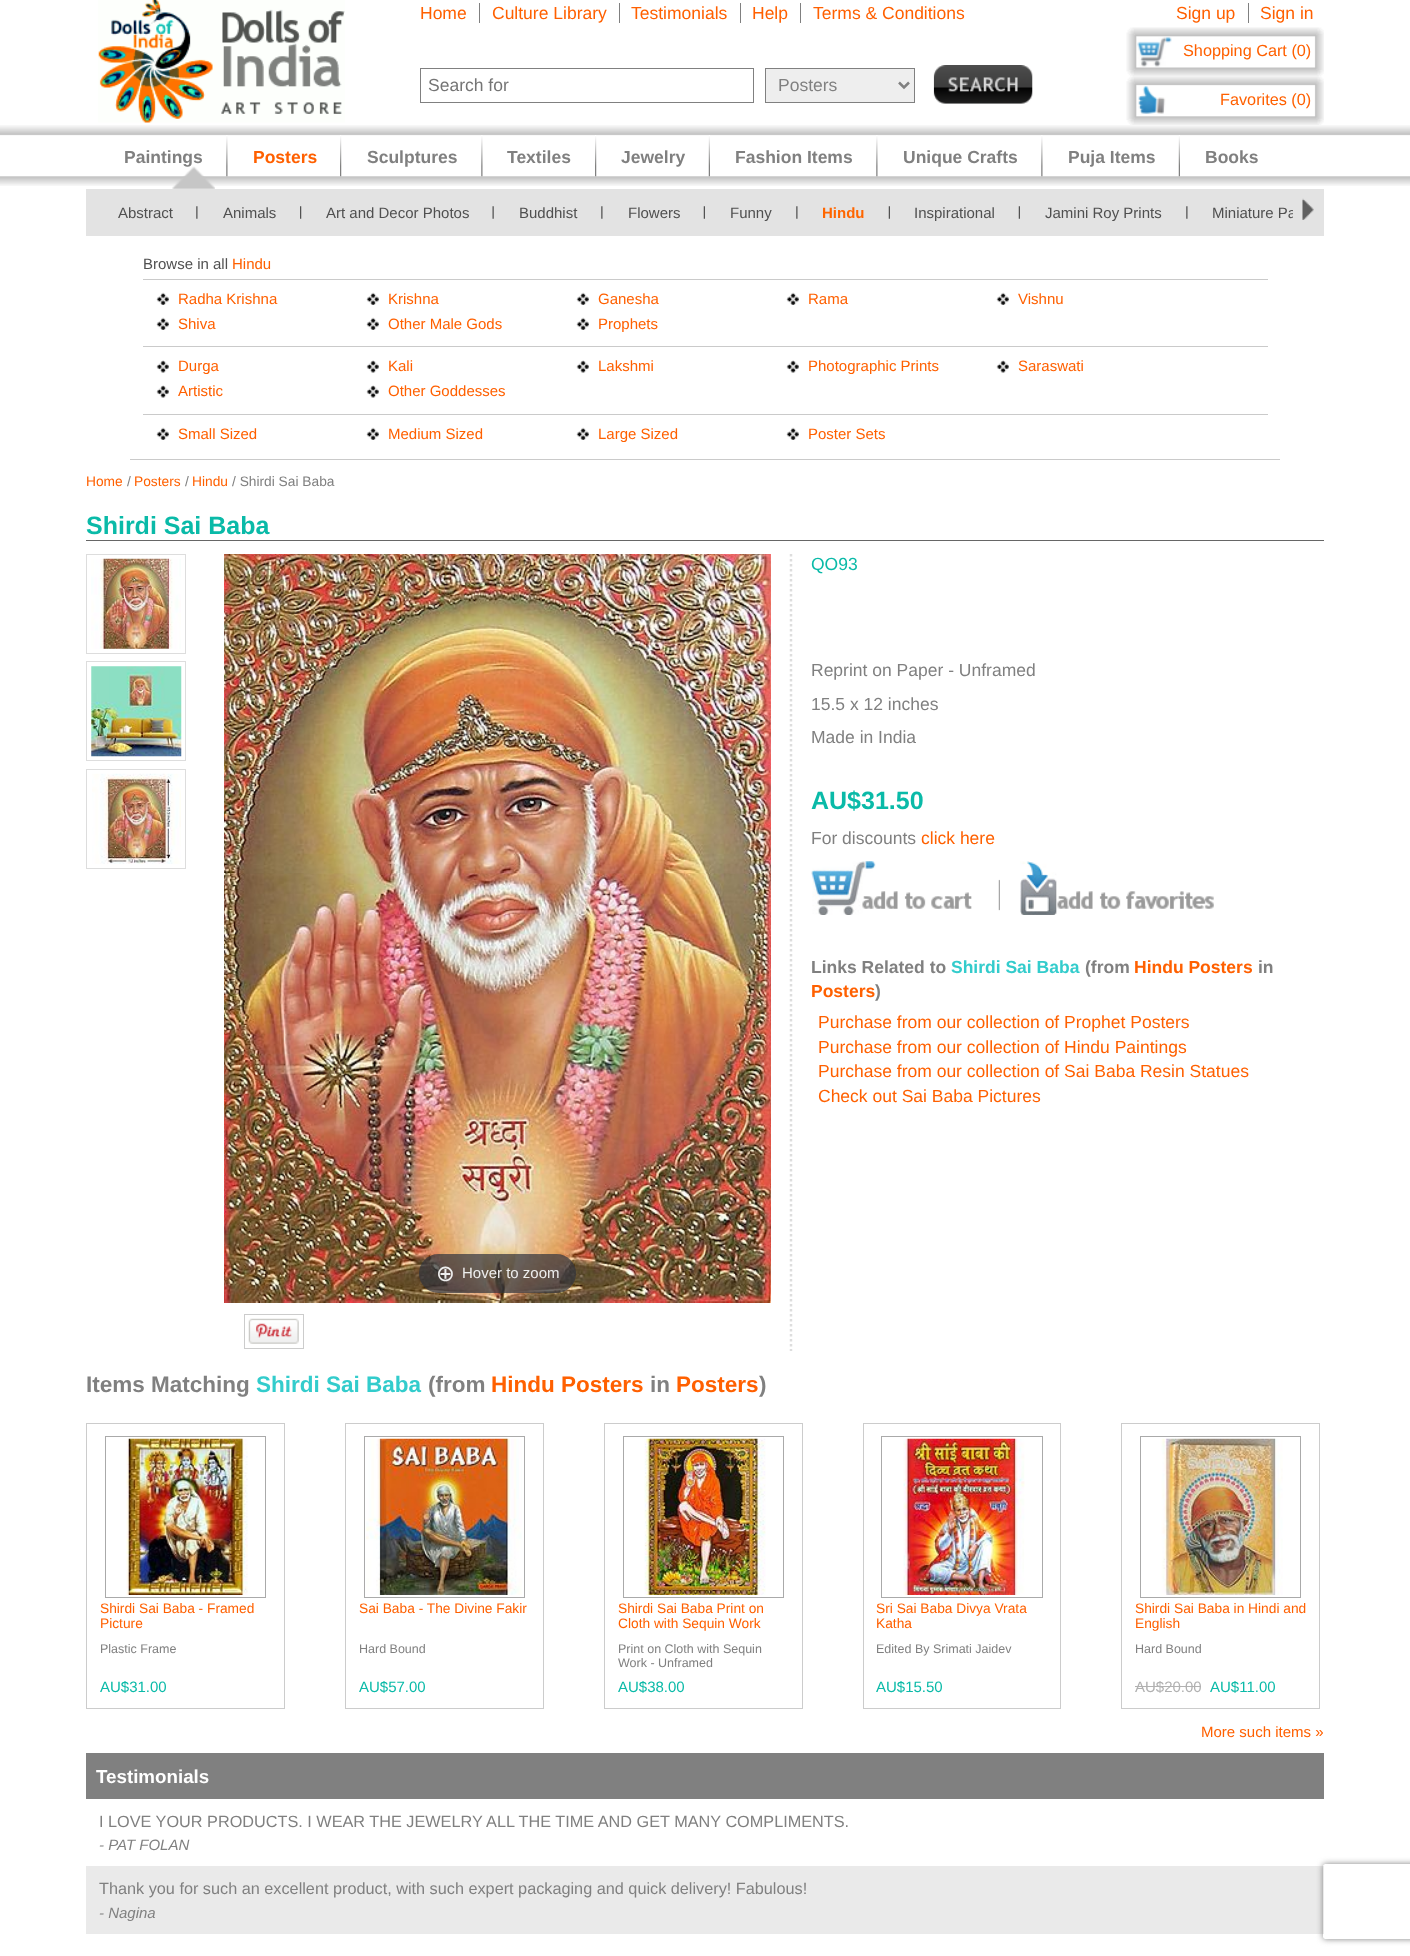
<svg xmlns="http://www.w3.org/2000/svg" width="1410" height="1956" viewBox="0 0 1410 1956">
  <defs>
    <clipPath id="clip1"><rect x="118" y="189" width="1175" height="47"/></clipPath>
    <clipPath id="clip2"><path d="M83 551H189V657H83ZM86 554H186V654H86Z" clip-rule="evenodd"/></clipPath>
    <clipPath id="clip3"><path d="M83 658H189V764H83ZM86 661H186V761H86Z" clip-rule="evenodd"/></clipPath>
    <clipPath id="clip4"><path d="M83 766H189V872H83ZM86 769H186V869H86Z" clip-rule="evenodd"/></clipPath>
    <clipPath id="clip5"><path d="M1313 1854H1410V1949H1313ZM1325.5 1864H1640.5C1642 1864 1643 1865 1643 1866.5V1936.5C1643 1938 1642 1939 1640.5 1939H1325.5C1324 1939 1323 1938 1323 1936.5V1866.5C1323 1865 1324 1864 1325.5 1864Z" clip-rule="evenodd"/></clipPath>
  </defs>
  <rect width="100%" height="100%" fill="rgb(255,255,255)"/>
  <image x="98" y="0" width="247" height="123" href="pic1.png"/>
  <text x="420" y="19" font-family="Liberation Sans" font-size="17.5" fill="rgb(255,96,0)">Home</text>
  <rect x="479" y="3" width="1" height="20" fill="rgb(128,128,128)"/>
  <text x="492" y="19" font-family="Liberation Sans" font-size="17.5" fill="rgb(255,96,0)">Culture Library</text>
  <rect x="619" y="3" width="1" height="20" fill="rgb(128,128,128)"/>
  <text x="631" y="19" font-family="Liberation Sans" font-size="17.5" fill="rgb(255,96,0)">Testimonials</text>
  <rect x="740" y="3" width="1" height="20" fill="rgb(128,128,128)"/>
  <text x="752" y="19" font-family="Liberation Sans" font-size="17.5" fill="rgb(255,96,0)">Help</text>
  <rect x="800" y="3" width="1" height="20" fill="rgb(128,128,128)"/>
  <text x="813" y="19" font-family="Liberation Sans" font-size="17.5" fill="rgb(255,96,0)">Terms &amp; Conditions</text>
  <rect x="420.5" y="68.5" width="333" height="34" fill="none" stroke="rgb(128,128,128)"/>
  <text x="428" y="91" font-family="Liberation Sans" font-size="17.5" fill="rgb(117,117,117)">Search for</text>
  <rect x="765.5" y="68.5" width="149" height="34" fill="rgb(238,238,238)" stroke="rgb(128,128,128)"/>
  <path d="M899 82.5L904 87.5L909 82.5" fill="none" stroke="rgb(128,128,128)" stroke-width="2.5"/>
  <text x="778" y="91" font-family="Liberation Sans" font-size="17.5" fill="rgb(128,128,128)">Posters</text>
  <image x="933" y="65" width="100" height="39" href="pic2.png"/>
  <text x="1176" y="19" font-family="Liberation Sans" font-size="17.5" fill="rgb(255,96,0)">Sign up</text>
  <rect x="1248" y="3" width="1" height="20" fill="rgb(128,128,128)"/>
  <text x="1260" y="19" font-family="Liberation Sans" font-size="17.5" fill="rgb(255,96,0)">Sign in</text>
  <image x="1126" y="27" width="198" height="50" href="pic3.png"/>
  <text x="1183" y="56" font-family="Liberation Sans" font-size="16.25" fill="rgb(255,96,0)">Shopping Cart (0)</text>
  <image x="1126" y="76" width="198" height="49" href="pic4.png"/>
  <text x="1220" y="105" font-family="Liberation Sans" font-size="16.25" fill="rgb(255,96,0)">Favorites (0)</text>
  <image x="0" y="125" width="1410" height="61" href="pic5.png"/>
  <image x="226" y="135" width="2" height="42" href="pic6.png"/>
  <text x="124" y="163" font-family="Liberation Sans" font-size="17.5" font-weight="bold" fill="rgb(128,128,128)">Paintings</text>
  <image x="340" y="135" width="2" height="42" href="pic7.png"/>
  <text x="253" y="163" font-family="Liberation Sans" font-size="17.5" font-weight="bold" fill="rgb(255,96,0)">Posters</text>
  <image x="481" y="135" width="2" height="42" href="pic6.png"/>
  <text x="367" y="163" font-family="Liberation Sans" font-size="17.5" font-weight="bold" fill="rgb(128,128,128)">Sculptures</text>
  <image x="595" y="135" width="2" height="42" href="pic7.png"/>
  <text x="507" y="163" font-family="Liberation Sans" font-size="17.5" font-weight="bold" fill="rgb(128,128,128)">Textiles</text>
  <image x="708" y="135" width="2" height="42" href="pic8.png"/>
  <text x="621" y="163" font-family="Liberation Sans" font-size="17.5" font-weight="bold" fill="rgb(128,128,128)">Jewelry</text>
  <image x="876" y="135" width="2" height="42" href="pic6.png"/>
  <text x="735" y="163" font-family="Liberation Sans" font-size="17.5" font-weight="bold" fill="rgb(128,128,128)">Fashion Items</text>
  <image x="1041" y="135" width="2" height="42" href="pic6.png"/>
  <text x="903" y="163" font-family="Liberation Sans" font-size="17.5" font-weight="bold" fill="rgb(128,128,128)">Unique Crafts</text>
  <image x="1178" y="135" width="2" height="42" href="pic8.png"/>
  <g font-family="Liberation Sans" font-size="17.5" font-weight="bold" fill="rgb(128,128,128)">
    <text x="1068" y="163">Puja Items</text>
    <text x="1205" y="163">Books</text>
  </g>
  <rect x="86" y="189" width="1238" height="47" fill="rgb(227,227,227)"/>
  <image x="172" y="166" width="43" height="23" href="pic9.png"/>
  <image x="196" y="206" width="2" height="13" href="pic10.png"/>
  <text x="118" y="218" font-family="Liberation Sans" font-size="15" fill="rgb(80,80,80)">Abstract</text>
  <image x="300" y="206" width="2" height="13" href="pic11.png"/>
  <text x="223" y="218" font-family="Liberation Sans" font-size="15" fill="rgb(80,80,80)">Animals</text>
  <image x="492" y="206" width="2" height="13" href="pic12.png"/>
  <text x="326" y="218" font-family="Liberation Sans" font-size="15" fill="rgb(80,80,80)">Art and Decor Photos</text>
  <image x="601" y="206" width="2" height="13" href="pic10.png"/>
  <text x="519" y="218" font-family="Liberation Sans" font-size="15" fill="rgb(80,80,80)">Buddhist</text>
  <image x="703" y="206" width="2" height="13" href="pic13.png"/>
  <text x="628" y="218" font-family="Liberation Sans" font-size="15" fill="rgb(80,80,80)">Flowers</text>
  <image x="796" y="206" width="2" height="13" href="pic10.png"/>
  <text x="730" y="218" font-family="Liberation Sans" font-size="15" fill="rgb(80,80,80)">Funny</text>
  <image x="888" y="206" width="2" height="13" href="pic13.png"/>
  <text x="822" y="218" font-family="Liberation Sans" font-size="15" font-weight="bold" fill="rgb(255,102,0)">Hindu</text>
  <image x="1018" y="206" width="2" height="13" href="pic13.png"/>
  <text x="914" y="218" font-family="Liberation Sans" font-size="15" fill="rgb(80,80,80)">Inspirational</text>
  <image x="1186" y="206" width="2" height="13" href="pic10.png"/>
  <text x="1045" y="218" font-family="Liberation Sans" font-size="15" fill="rgb(80,80,80)">Jamini Roy Prints</text>
  <g clip-path="url(#clip1)">
    <text x="1212" y="218" font-family="Liberation Sans" font-size="15" fill="rgb(80,80,80)">Miniature Pa</text>
  </g>
  <image x="1302" y="198" width="12" height="22" href="pic14.png"/>
  <rect x="130" y="459" width="1150" height="1" fill="rgb(202,202,202)"/>
  <rect x="143" y="279" width="1125" height="1" fill="rgb(202,202,202)"/>
  <text x="143" y="269" font-family="Liberation Sans" font-size="15" fill="rgb(80,80,80)">Browse in all</text>
  <text x="232" y="269" font-family="Liberation Sans" font-size="15" fill="rgb(255,96,0)">Hindu</text>
  <image x="156" y="292" width="13" height="13" href="pic15.png"/>
  <text x="178" y="304" font-family="Liberation Sans" font-size="15" fill="rgb(255,96,0)">Radha Krishna</text>
  <image x="366" y="292" width="13" height="13" href="pic15.png"/>
  <text x="388" y="304" font-family="Liberation Sans" font-size="15" fill="rgb(255,96,0)">Krishna</text>
  <image x="576" y="292" width="13" height="13" href="pic16.png"/>
  <text x="598" y="304" font-family="Liberation Sans" font-size="15" fill="rgb(255,96,0)">Ganesha</text>
  <image x="786" y="292" width="13" height="13" href="pic15.png"/>
  <text x="808" y="304" font-family="Liberation Sans" font-size="15" fill="rgb(255,96,0)">Rama</text>
  <image x="996" y="292" width="13" height="13" href="pic16.png"/>
  <text x="1018" y="304" font-family="Liberation Sans" font-size="15" fill="rgb(255,96,0)">Vishnu</text>
  <image x="156" y="317" width="13" height="13" href="pic17.png"/>
  <text x="178" y="329" font-family="Liberation Sans" font-size="15" fill="rgb(255,96,0)">Shiva</text>
  <image x="366" y="317" width="13" height="13" href="pic17.png"/>
  <text x="388" y="329" font-family="Liberation Sans" font-size="15" fill="rgb(255,96,0)">Other Male Gods</text>
  <image x="576" y="317" width="13" height="13" href="pic18.png"/>
  <text x="598" y="329" font-family="Liberation Sans" font-size="15" fill="rgb(255,96,0)">Prophets</text>
  <rect x="143" y="346" width="1125" height="1" fill="rgb(202,202,202)"/>
  <image x="156" y="360" width="13" height="13" href="pic19.png"/>
  <text x="178" y="371" font-family="Liberation Sans" font-size="15" fill="rgb(255,96,0)">Durga</text>
  <image x="366" y="360" width="13" height="13" href="pic19.png"/>
  <text x="388" y="371" font-family="Liberation Sans" font-size="15" fill="rgb(255,96,0)">Kali</text>
  <image x="576" y="360" width="13" height="13" href="pic20.png"/>
  <text x="598" y="371" font-family="Liberation Sans" font-size="15" fill="rgb(255,96,0)">Lakshmi</text>
  <image x="786" y="360" width="13" height="13" href="pic19.png"/>
  <text x="808" y="371" font-family="Liberation Sans" font-size="15" fill="rgb(255,96,0)">Photographic Prints</text>
  <image x="996" y="360" width="13" height="13" href="pic20.png"/>
  <text x="1018" y="371" font-family="Liberation Sans" font-size="15" fill="rgb(255,96,0)">Saraswati</text>
  <image x="156" y="385" width="13" height="13" href="pic19.png"/>
  <text x="178" y="396" font-family="Liberation Sans" font-size="15" fill="rgb(255,96,0)">Artistic</text>
  <image x="366" y="385" width="13" height="13" href="pic19.png"/>
  <text x="388" y="396" font-family="Liberation Sans" font-size="15" fill="rgb(255,96,0)">Other Goddesses</text>
  <rect x="143" y="414" width="1125" height="1" fill="rgb(202,202,202)"/>
  <image x="156" y="427" width="13" height="13" href="pic17.png"/>
  <text x="178" y="439" font-family="Liberation Sans" font-size="15" fill="rgb(255,96,0)">Small Sized</text>
  <image x="366" y="427" width="13" height="13" href="pic17.png"/>
  <text x="388" y="439" font-family="Liberation Sans" font-size="15" fill="rgb(255,96,0)">Medium Sized</text>
  <image x="576" y="427" width="13" height="13" href="pic18.png"/>
  <text x="598" y="439" font-family="Liberation Sans" font-size="15" fill="rgb(255,96,0)">Large Sized</text>
  <image x="786" y="427" width="13" height="13" href="pic17.png"/>
  <text x="808" y="439" font-family="Liberation Sans" font-size="15" fill="rgb(255,96,0)">Poster Sets</text>
  <text x="86" y="486" font-family="Liberation Sans" font-size="13.75" fill="rgb(255,96,0)">Home</text>
  <text x="127" y="486" font-family="Liberation Sans" font-size="13.75" fill="rgb(128,128,128)">/</text>
  <text x="134" y="486" font-family="Liberation Sans" font-size="13.75" fill="rgb(255,96,0)">Posters</text>
  <text x="185" y="486" font-family="Liberation Sans" font-size="13.75" fill="rgb(128,128,128)">/</text>
  <text x="192" y="486" font-family="Liberation Sans" font-size="13.75" fill="rgb(255,96,0)">Hindu</text>
  <text x="232" y="486" font-family="Liberation Sans" font-size="13.75" fill="rgb(128,128,128)">/ Shirdi Sai Baba</text>
  <rect x="86" y="540" width="1238" height="1" fill="rgb(102,102,102)"/>
  <text x="86" y="534" font-family="Liberation Sans" font-size="25" font-weight="bold" fill="rgb(10,186,168)">Shirdi Sai Baba</text>
  <g clip-path="url(#clip2)">
    <rect x="86" y="554" width="100" height="100" fill="rgba(0,0,0,0.3)" filter="blur(0.5px)"/>
  </g>
  <rect x="86.5" y="554.5" width="99" height="99" fill="none" stroke="rgb(221,221,221)"/>
  <image x="91" y="558" width="90" height="91" href="pic21.png"/>
  <g clip-path="url(#clip3)">
    <rect x="86" y="661" width="100" height="100" fill="rgba(0,0,0,0.3)" filter="blur(0.5px)"/>
  </g>
  <rect x="86.5" y="661.5" width="99" height="99" fill="none" stroke="rgb(221,221,221)"/>
  <image x="91" y="666" width="91" height="91" href="pic22.png"/>
  <g clip-path="url(#clip4)">
    <rect x="86" y="769" width="100" height="100" fill="rgba(0,0,0,0.3)" filter="blur(0.5px)"/>
  </g>
  <rect x="86.5" y="769.5" width="99" height="99" fill="none" stroke="rgb(221,221,221)"/>
  <image x="92" y="773" width="89" height="91" href="pic23.png"/>
  <text x="811" y="570" font-family="Liberation Sans" font-size="17.5" fill="rgb(10,186,168)">QO93</text>
  <g font-family="Liberation Sans" font-size="17.5" fill="rgb(128,128,128)">
    <text>
      <tspan x="811" y="676">Reprint on Paper - Unframed</tspan>
      <tspan x="811" y="710">15.5 x 12 inches</tspan>
      <tspan x="811" y="743">Made in India</tspan>
    </text>
  </g>
  <text x="811" y="809" font-family="Liberation Sans" font-size="25" font-weight="bold" fill="rgb(10,186,168)">AU$31.50</text>
  <text x="811" y="844" font-family="Liberation Sans" font-size="17.5" fill="rgb(128,128,128)">For discounts</text>
  <text x="921" y="844" font-family="Liberation Sans" font-size="17.5" fill="rgb(255,96,0)">click here</text>
  <image x="811" y="861" width="161" height="54" href="pic24.png"/>
  <image x="998" y="879" width="2" height="32" href="pic25.png"/>
  <image x="1020" y="861" width="194" height="54" href="pic26.png"/>
  <text x="811" y="973" font-family="Liberation Sans" font-size="17.5" font-weight="bold" fill="rgb(128,128,128)">Links Related to</text>
  <text x="951" y="973" font-family="Liberation Sans" font-size="17.5" font-weight="bold" fill="rgb(51,204,204)">Shirdi Sai Baba</text>
  <text x="1085" y="973" font-family="Liberation Sans" font-size="17.5" font-weight="bold" fill="rgb(128,128,128)">(from</text>
  <text x="1134" y="973" font-family="Liberation Sans" font-size="17.5" font-weight="bold" fill="rgb(255,96,0)">Hindu Posters</text>
  <text x="1258" y="973" font-family="Liberation Sans" font-size="17.5" font-weight="bold" fill="rgb(128,128,128)">in</text>
  <text x="811" y="997" font-family="Liberation Sans" font-size="17.5" font-weight="bold" fill="rgb(255,96,0)">Posters</text>
  <text x="875" y="997" font-family="Liberation Sans" font-size="17.5" font-weight="bold" fill="rgb(128,128,128)">)</text>
  <g font-family="Liberation Sans" font-size="17.5" fill="rgb(255,96,0)">
    <text>
      <tspan x="818" y="1028">Purchase from our collection of Prophet Posters</tspan>
      <tspan x="818" y="1053">Purchase from our collection of Hindu Paintings</tspan>
      <tspan x="818" y="1077">Purchase from our collection of Sai Baba Resin Statues</tspan>
      <tspan x="818" y="1102">Check out Sai Baba Pictures</tspan>
    </text>
  </g>
  <path d="M791 554V1351" fill="none" stroke="rgb(221,221,221)" stroke-width="2.5" stroke-dasharray="2.5 2.5"/>
  <image x="224" y="554" width="547" height="749" href="pic27.png"/>
  <rect x="419" y="1254" width="157" height="39" rx="19.5" fill="rgba(49,51,61,0.7)"/>
  <text x="436" y="1281" font-family="DejaVu Sans" font-size="22.5" fill="rgb(238,238,238)">⊕</text>
  <text x="462" y="1278" font-family="Liberation Sans" font-size="15" fill="rgb(238,238,238)">Hover to zoom</text>
  <rect x="244.5" y="1314.5" width="59" height="34" fill="none" stroke="rgb(204,204,204)"/>
  <image x="248" y="1318" width="51" height="26" href="pic28.png"/>
  <text x="86" y="1392" font-family="Liberation Sans" font-size="22.5" font-weight="bold" fill="rgb(128,128,128)">Items Matching</text>
  <text x="256" y="1392" font-family="Liberation Sans" font-size="22.5" font-weight="bold" fill="rgb(51,204,204)">Shirdi Sai Baba</text>
  <text x="428" y="1392" font-family="Liberation Sans" font-size="22.5" font-weight="bold" fill="rgb(128,128,128)">(from</text>
  <text x="491" y="1392" font-family="Liberation Sans" font-size="22.5" font-weight="bold" fill="rgb(255,96,0)">Hindu Posters</text>
  <text x="650" y="1392" font-family="Liberation Sans" font-size="22.5" font-weight="bold" fill="rgb(128,128,128)">in</text>
  <text x="676" y="1392" font-family="Liberation Sans" font-size="22.5" font-weight="bold" fill="rgb(255,96,0)">Posters</text>
  <text x="759" y="1392" font-family="Liberation Sans" font-size="22.5" font-weight="bold" fill="rgb(128,128,128)">)</text>
  <rect x="86.5" y="1423.5" width="198" height="285" fill="none" stroke="rgb(204,204,204)"/>
  <rect x="105.5" y="1436.5" width="160" height="161" fill="none" stroke="rgb(170,170,170)"/>
  <image x="126" y="1438" width="122" height="157" href="pic29.png"/>
  <g font-family="Liberation Sans" font-size="13.75" fill="rgb(255,96,0)">
    <text>
      <tspan x="100" y="1613">Shirdi Sai Baba - Framed</tspan>
      <tspan x="100" y="1628">Picture</tspan>
    </text>
  </g>
  <text x="100" y="1653" font-family="Liberation Sans" font-size="12.5" fill="rgb(128,128,128)">Plastic Frame</text>
  <text x="100" y="1692" font-family="Liberation Sans" font-size="15" fill="rgb(10,186,168)">AU$31.00</text>
  <rect x="345.5" y="1423.5" width="198" height="285" fill="none" stroke="rgb(204,204,204)"/>
  <rect x="364.5" y="1436.5" width="160" height="161" fill="none" stroke="rgb(170,170,170)"/>
  <image x="366" y="1438" width="156" height="157" href="pic30.png"/>
  <text x="359" y="1613" font-family="Liberation Sans" font-size="13.75" fill="rgb(255,96,0)">Sai Baba - The Divine Fakir</text>
  <text x="359" y="1653" font-family="Liberation Sans" font-size="12.5" fill="rgb(128,128,128)">Hard Bound</text>
  <text x="359" y="1692" font-family="Liberation Sans" font-size="15" fill="rgb(10,186,168)">AU$57.00</text>
  <rect x="604.5" y="1423.5" width="198" height="285" fill="none" stroke="rgb(204,204,204)"/>
  <rect x="623.5" y="1436.5" width="160" height="161" fill="none" stroke="rgb(170,170,170)"/>
  <image x="644" y="1438" width="122" height="157" href="pic31.png"/>
  <g font-family="Liberation Sans" font-size="13.75" fill="rgb(255,96,0)">
    <text>
      <tspan x="618" y="1613">Shirdi Sai Baba Print on</tspan>
      <tspan x="618" y="1628">Cloth with Sequin Work</tspan>
    </text>
  </g>
  <g font-family="Liberation Sans" font-size="12.5" fill="rgb(128,128,128)">
    <text>
      <tspan x="618" y="1653">Print on Cloth with Sequin</tspan>
      <tspan x="618" y="1667">Work - Unframed</tspan>
    </text>
  </g>
  <text x="618" y="1692" font-family="Liberation Sans" font-size="15" fill="rgb(10,186,168)">AU$38.00</text>
  <rect x="863.5" y="1423.5" width="197" height="285" fill="none" stroke="rgb(204,204,204)"/>
  <rect x="881.5" y="1436.5" width="161" height="161" fill="none" stroke="rgb(170,170,170)"/>
  <image x="903" y="1438" width="122" height="157" href="pic32.png"/>
  <g font-family="Liberation Sans" font-size="13.75" fill="rgb(255,96,0)">
    <text>
      <tspan x="876" y="1613">Sri Sai Baba Divya Vrata</tspan>
      <tspan x="876" y="1628">Katha</tspan>
    </text>
  </g>
  <text x="876" y="1653" font-family="Liberation Sans" font-size="12.5" fill="rgb(128,128,128)">Edited By Srimati Jaidev</text>
  <text x="876" y="1692" font-family="Liberation Sans" font-size="15" fill="rgb(10,186,168)">AU$15.50</text>
  <rect x="1121.5" y="1423.5" width="198" height="285" fill="none" stroke="rgb(204,204,204)"/>
  <rect x="1140.5" y="1436.5" width="160" height="161" fill="none" stroke="rgb(170,170,170)"/>
  <image x="1161" y="1438" width="122" height="157" href="pic33.png"/>
  <g font-family="Liberation Sans" font-size="13.75" fill="rgb(255,96,0)">
    <text>
      <tspan x="1135" y="1613">Shirdi Sai Baba in Hindi and</tspan>
      <tspan x="1135" y="1628">English</tspan>
    </text>
  </g>
  <text x="1135" y="1653" font-family="Liberation Sans" font-size="12.5" fill="rgb(128,128,128)">Hard Bound</text>
  <text x="1135" y="1692" font-family="Liberation Sans" font-size="15" fill="rgb(177,177,177)">AU$20.00</text>
  <rect x="1135" y="1686" width="66" height="1" fill="rgb(177,177,177)"/>
  <text x="1210" y="1692" font-family="Liberation Sans" font-size="15" fill="rgb(10,186,168)">AU$11.00</text>
  <text x="1201" y="1737" font-family="Liberation Sans" font-size="15" fill="rgb(255,96,0)">More such items »</text>
  <rect x="86" y="1753" width="1238" height="46" fill="rgb(128,128,128)"/>
  <text x="96" y="1783" font-family="Liberation Sans" font-size="18.75" font-weight="bold" fill="rgb(255,255,255)">Testimonials</text>
  <text x="99" y="1827" font-family="Liberation Sans" font-size="16.25" fill="rgb(128,128,128)">I LOVE YOUR PRODUCTS. I WEAR THE JEWELRY ALL THE TIME AND GET MANY COMPLIMENTS.</text>
  <text x="99" y="1850" font-family="Liberation Sans" font-size="15" font-style="italic" fill="rgb(128,128,128)">- PAT FOLAN</text>
  <rect x="86" y="1866" width="1238" height="68" fill="rgb(234,234,234)"/>
  <text x="99" y="1894" font-family="Liberation Sans" font-size="16.25" fill="rgb(128,128,128)">Thank you for such an excellent product, with such expert packaging and quick delivery! Fabulous!</text>
  <text x="99" y="1918" font-family="Liberation Sans" font-size="15" font-style="italic" fill="rgb(128,128,128)">- Nagina</text>
  <g clip-path="url(#clip5)">
    <rect x="1323" y="1864" width="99" height="75" rx="2.5" fill="rgb(128,128,128)" filter="blur(3px)"/>
  </g>
</svg>
